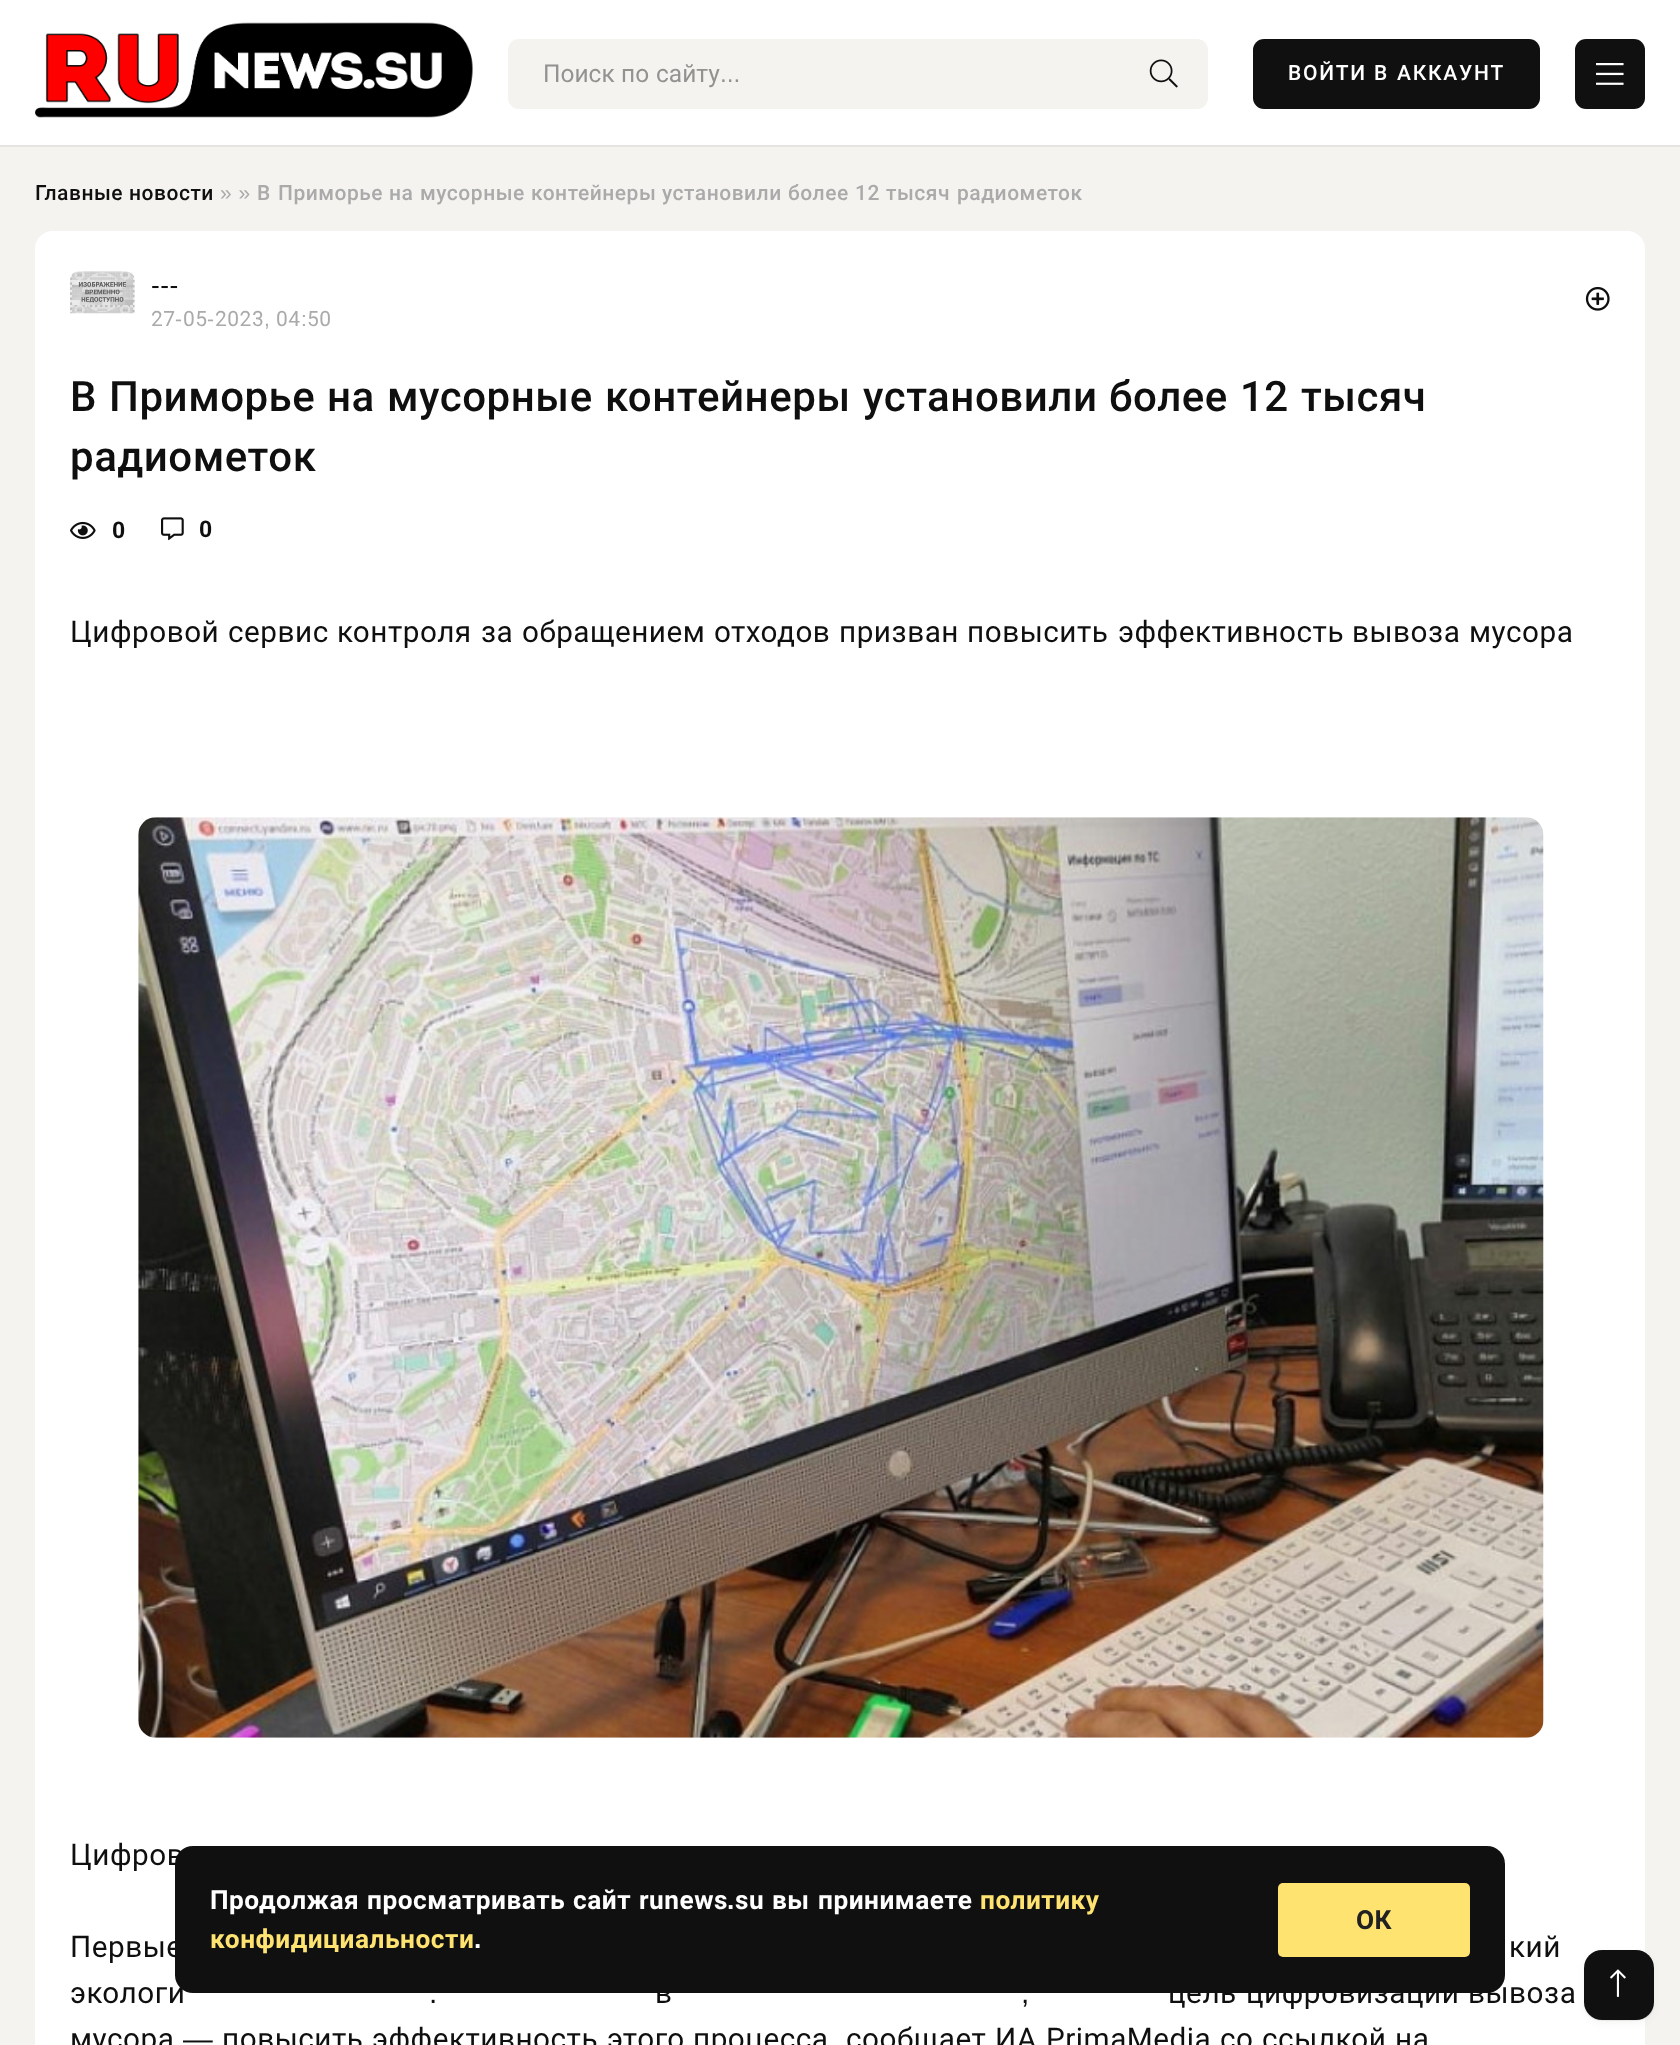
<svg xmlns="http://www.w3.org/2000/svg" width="1680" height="2045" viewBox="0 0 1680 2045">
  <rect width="100%" height="100%" fill="rgb(244,243,240)"/>
  <rect x="0" y="145" width="1680" height="2" fill="rgb(229,228,225)"/>
  <rect x="0" y="0" width="1680" height="145" fill="rgb(255,255,255)"/>
  <image x="35" y="22" width="438" height="96" href="pic1.png"/>
  <rect x="508" y="39" width="700" height="70" rx="11" fill="rgb(244,243,240)"/>
  <g font-family="Roboto" font-size="24.5" fill="rgb(146,146,144)">
    <text x="543" y="82">Поиск</text>
    <text x="621" y="82">по</text>
    <text x="656" y="82">сайту</text>
  </g>
  <text x="720" y="82" font-family="Liberation Sans" font-size="24.5" fill="rgb(146,146,144)">...</text>
  <image x="1149" y="59" width="29" height="29" href="pic2.png"/>
  <rect x="1253" y="39" width="287" height="70" rx="11" fill="rgb(16,16,16)"/>
  <g font-family="Roboto" font-size="21" font-weight="500" letter-spacing="1.75" fill="rgb(255,255,255)">
    <text x="1288" y="80">ВОЙТИ</text>
    <text x="1374" y="80">В</text>
    <text x="1397" y="80">АККАУНТ</text>
  </g>
  <rect x="1575" y="39" width="70" height="70" rx="11" fill="rgb(16,16,16)"/>
  <image x="1596" y="63" width="28" height="22" href="pic3.png"/>
  <g font-family="Roboto" font-size="21" font-weight="500" letter-spacing="0.5" fill="rgb(15,15,16)">
    <text x="35" y="200">Главные</text>
    <text x="129" y="200">новости</text>
  </g>
  <text x="220" y="200" font-family="Liberation Sans" font-size="21" letter-spacing="0.5" fill="rgb(170,170,170)">» »</text>
  <g font-family="Roboto" font-size="21" font-weight="500" letter-spacing="0.5" fill="rgb(170,170,170)">
    <text x="257" y="200">В</text>
    <text x="278" y="200">Приморье</text>
    <text x="389" y="200">на</text>
    <text x="420" y="200">мусорные</text>
    <text x="531" y="200">контейнеры</text>
    <text x="662" y="200">установили</text>
    <text x="788" y="200">более</text>
    <text x="855" y="200">12</text>
    <text x="886" y="200">тысяч</text>
    <text x="957" y="200">радиометок</text>
  </g>
  <rect x="35" y="231" width="1610" height="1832" rx="18" fill="rgb(255,255,255)"/>
  <image x="70" y="271" width="65" height="43" href="pic4.png"/>
  <text x="151" y="294" font-family="Liberation Sans" font-size="26.25" letter-spacing="0.5" fill="rgb(15,15,16)">---</text>
  <text x="151" y="326" font-family="Roboto" font-size="21" letter-spacing="0.5" fill="rgb(170,170,170)">27</text>
  <text x="175" y="326" font-family="Liberation Sans" font-size="21" letter-spacing="0.5" fill="rgb(170,170,170)">-</text>
  <text x="183" y="326" font-family="Roboto" font-size="21" letter-spacing="0.5" fill="rgb(170,170,170)">05</text>
  <text x="207" y="326" font-family="Liberation Sans" font-size="21" letter-spacing="0.5" fill="rgb(170,170,170)">-</text>
  <g font-family="Roboto" font-size="21" letter-spacing="0.5" fill="rgb(170,170,170)">
    <text x="215" y="326">2023</text>
    <text x="276" y="326">04</text>
  </g>
  <text x="301" y="326" font-family="Liberation Sans" font-size="21" letter-spacing="0.5" fill="rgb(170,170,170)">:</text>
  <text x="307" y="326" font-family="Roboto" font-size="21" letter-spacing="0.5" fill="rgb(170,170,170)">50</text>
  <text x="264" y="326" font-family="Liberation Sans" font-size="21" letter-spacing="0.5" fill="rgb(170,170,170)">,</text>
  <image x="1585" y="286" width="25" height="25" href="pic5.png"/>
  <g font-family="Roboto" font-size="42" font-weight="500" letter-spacing="0.5" fill="rgb(15,15,16)">
    <text x="70" y="411">В</text>
    <text x="109" y="411">Приморье</text>
    <text x="327" y="411">на</text>
    <text x="387" y="411">мусорные</text>
    <text x="605" y="411">контейнеры</text>
    <text x="863" y="411">установили</text>
    <text x="1109" y="411">более</text>
    <text x="1240" y="411">12</text>
    <text x="1301" y="411">тысяч</text>
    <text x="70" y="471">радиометок</text>
  </g>
  <image x="70" y="521" width="26" height="18" href="pic6.png"/>
  <text x="112" y="538" font-family="Roboto" font-size="23" font-weight="bold" letter-spacing="0.5" fill="rgb(15,15,16)">0</text>
  <image x="161" y="517" width="23" height="24" href="pic7.png"/>
  <text x="199" y="537" font-family="Roboto" font-size="23" font-weight="bold" letter-spacing="0.5" fill="rgb(15,15,16)">0</text>
  <g font-family="Roboto" font-size="29.75" letter-spacing="0.5" fill="rgb(15,15,16)">
    <text x="70" y="642">Цифровой</text>
    <text x="228" y="642">сервис</text>
    <text x="337" y="642">контроля</text>
    <text x="481" y="642">за</text>
    <text x="522" y="642">обращением</text>
    <text x="714" y="642">отходов</text>
    <text x="839" y="642">призван</text>
    <text x="967" y="642">повысить</text>
    <text x="1118" y="642">эффективность</text>
    <text x="1352" y="642">вывоза</text>
    <text x="1469" y="642">мусора</text>
  </g>
  <image x="138" y="817" width="1406" height="921" href="pic8.png"/>
  <g font-family="Roboto" font-size="29.75" letter-spacing="0.5" fill="rgb(15,15,16)">
    <text x="70" y="1865">Цифров</text>
    <text x="70" y="1957">Первые</text>
    <text x="1509" y="1957">кий</text>
    <text x="70" y="2003">экологи</text>
  </g>
  <text x="429" y="2003" font-family="Liberation Sans" font-size="29.75" letter-spacing="0.5" fill="rgb(15,15,16)">.</text>
  <text x="655" y="2003" font-family="Roboto" font-size="29.75" letter-spacing="0.5" fill="rgb(15,15,16)">в</text>
  <text x="1021" y="2003" font-family="Liberation Sans" font-size="29.75" letter-spacing="0.5" fill="rgb(15,15,16)">,</text>
  <g font-family="Roboto" font-size="29.75" letter-spacing="0.5" fill="rgb(15,15,16)">
    <text x="1168" y="2003">цель</text>
    <text x="1246" y="2003">цифровизации</text>
    <text x="1468" y="2003">вывоза</text>
    <text x="70" y="2049">мусора</text>
  </g>
  <text x="183" y="2049" font-family="Liberation Sans" font-size="29.75" letter-spacing="0.5" fill="rgb(15,15,16)">—</text>
  <g font-family="Roboto" font-size="29.75" letter-spacing="0.5" fill="rgb(15,15,16)">
    <text x="222" y="2049">повысить</text>
    <text x="372" y="2049">эффективность</text>
    <text x="607" y="2049">этого</text>
    <text x="693" y="2049">процесса</text>
    <text x="846" y="2049">сообщает</text>
    <text x="995" y="2049">ИА</text>
    <text x="1046" y="2049">PrimaMedia</text>
    <text x="1220" y="2049">со</text>
    <text x="1262" y="2049">ссылкой</text>
    <text x="1395" y="2049">на</text>
  </g>
  <rect x="175" y="1846" width="1330" height="147" rx="18" fill="rgb(16,16,16)"/>
  <g font-family="Roboto" font-size="26.25" font-weight="bold" letter-spacing="0.5" fill="rgb(255,255,255)">
    <text x="210" y="1909">Продолжая</text>
    <text x="367" y="1909">просматривать</text>
    <text x="573" y="1909">сайт</text>
    <text x="639" y="1909">runews</text>
  </g>
  <text x="727" y="1909" font-family="Liberation Sans" font-size="26.25" font-weight="bold" letter-spacing="0.5" fill="rgb(255,255,255)">.</text>
  <g font-family="Roboto" font-size="26.25" font-weight="bold" letter-spacing="0.5" fill="rgb(255,255,255)">
    <text x="735" y="1909">su</text>
    <text x="772" y="1909">вы</text>
    <text x="818" y="1909">принимаете</text>
  </g>
  <g font-family="Roboto" font-size="26.25" font-weight="bold" letter-spacing="0.5" fill="rgb(255,227,113)">
    <text x="980" y="1909">политику</text>
    <text x="210" y="1948">конфидициальности</text>
  </g>
  <text x="474" y="1948" font-family="Liberation Sans" font-size="26.25" font-weight="bold" letter-spacing="0.5" fill="rgb(255,255,255)">.</text>
  <rect x="1278" y="1883" width="192" height="74" rx="5" fill="rgb(255,227,113)"/>
  <text x="1356" y="1929" font-family="Roboto" font-size="26.25" font-weight="bold" letter-spacing="0.5" fill="rgb(33,33,33)">ОК</text>
  <path d="M1584 2007C1588 2024 1606 2021 1619 2021C1632 2021 1650 2024 1654 2007V1966L1653 2006L1651 2012C1644 2022 1630 2020 1619 2020C1606 2020 1589 2023 1584 2007Z" fill="rgba(56,50,48,0.08)"/>
  <rect x="1584" y="1953" width="70" height="70" rx="18" fill="rgba(56,50,48,0.05)" filter="blur(3.5px)"/>
  <rect x="1584" y="1950" width="70" height="70" rx="18" fill="rgb(16,16,16)"/>
  <image x="1610" y="1969" width="16" height="28" href="pic9.png"/>
</svg>
